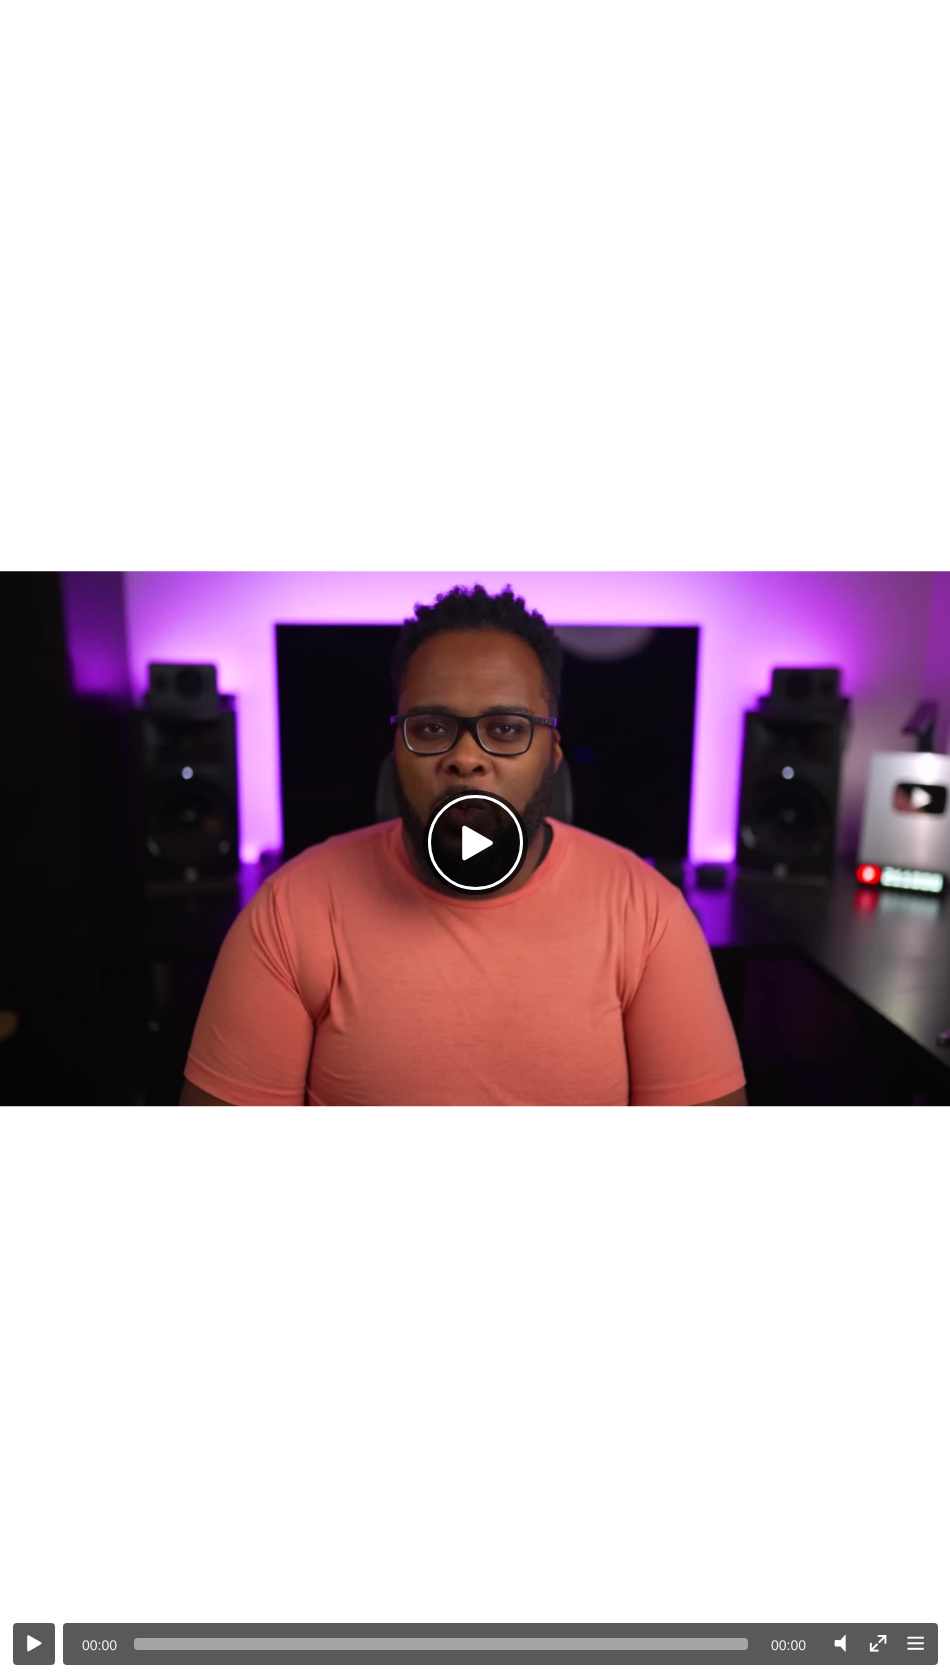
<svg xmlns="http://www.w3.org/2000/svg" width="950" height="1677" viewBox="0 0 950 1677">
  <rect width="100%" height="100%" fill="rgb(255,255,255)"/>
  <image x="0" y="571" width="950" height="536" href="pic1.png"/>
  <circle cx="475.5" cy="842.5" r="52.5" fill="rgba(0,0,0,0.65)"/>
  <circle cx="475.5" cy="842.5" r="46" fill="none" stroke="rgb(255,255,255)" stroke-width="3"/>
  <image x="462" y="825" width="31" height="36" href="pic2.png"/>
  <rect x="63" y="1623" width="875" height="42" rx="4" fill="rgb(89,89,89)"/>
  <rect x="13" y="1623" width="42" height="42" rx="4" fill="rgb(89,89,89)"/>
  <image x="27" y="1635" width="15" height="17" href="pic3.png"/>
  <rect x="134" y="1638" width="614" height="12" rx="4" fill="rgb(165,165,165)"/>
  <image x="834" y="1634" width="12" height="18" href="pic4.png"/>
  <image x="869" y="1635" width="18" height="17" href="pic5.png"/>
  <image x="907" y="1636" width="17" height="14" href="pic6.png"/>
  <g font-family="Liberation Sans" font-size="14" fill="rgb(238,238,238)">
    <text x="82" y="1650">00:00</text>
    <text x="771" y="1650">00:00</text>
  </g>
</svg>
